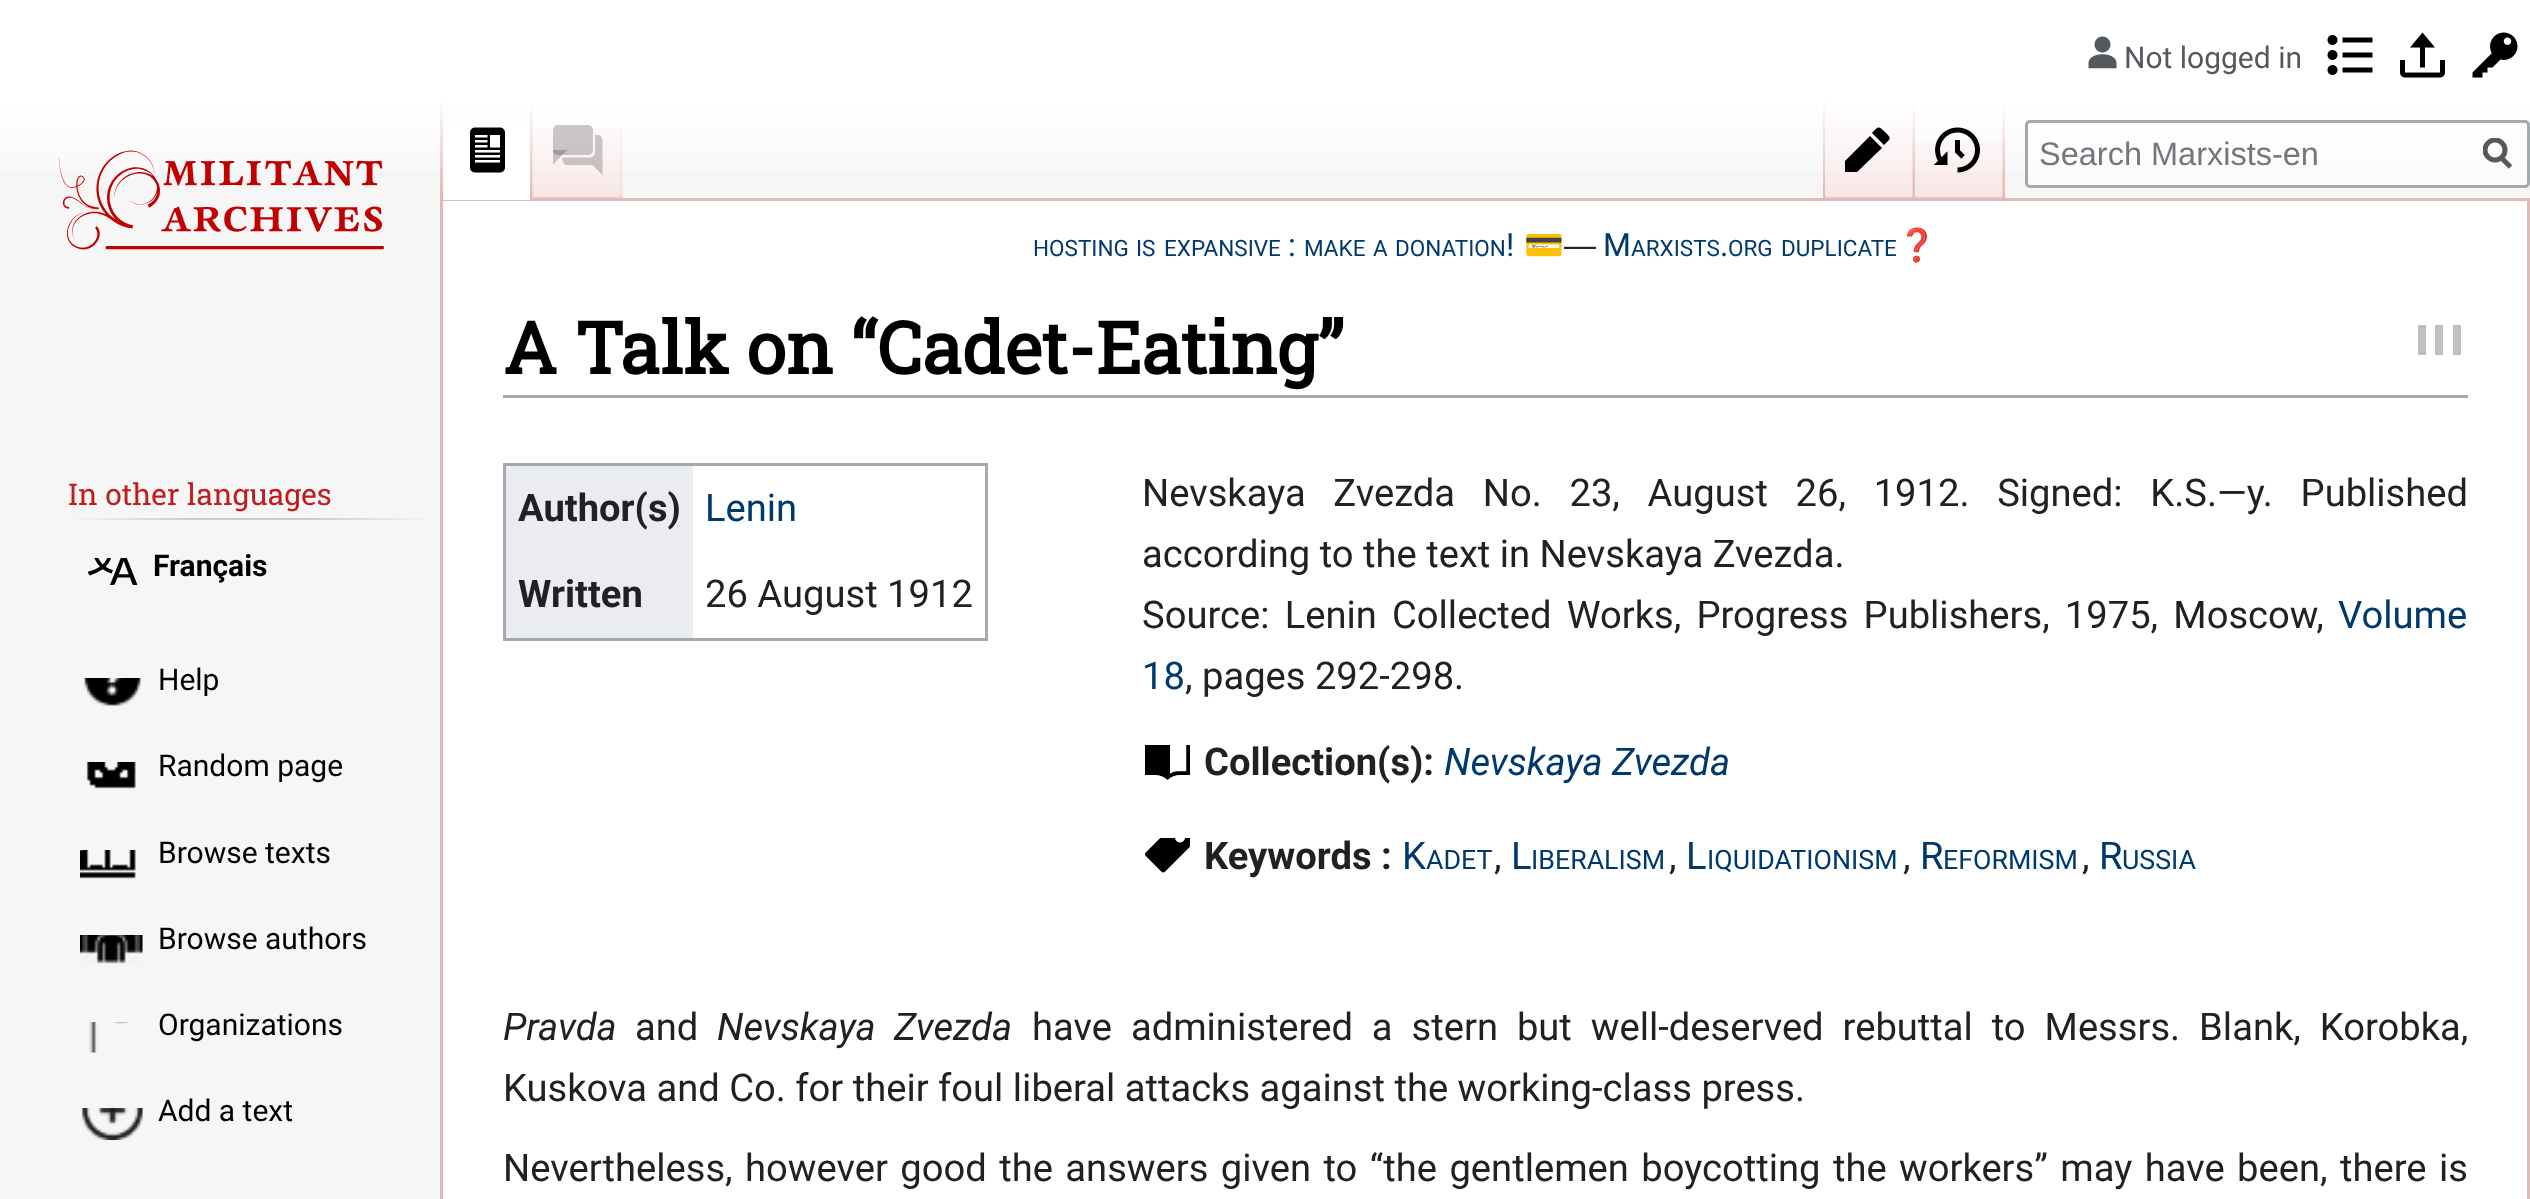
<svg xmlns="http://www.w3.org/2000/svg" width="2530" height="1199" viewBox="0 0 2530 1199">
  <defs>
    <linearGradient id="g1" gradientUnits="userSpaceOnUse" x1="1265" y1="0" x2="1265" y2="200"><stop offset="0.5" stop-color="rgb(255,255,255)"/><stop offset="1" stop-color="rgb(246,246,246)"/></linearGradient>
    <linearGradient id="g2" gradientUnits="userSpaceOnUse" x1="441" y1="100" x2="441" y2="200"><stop offset="0" stop-color="rgb(230,180,180)" stop-opacity="0"/><stop offset="1" stop-color="rgb(230,180,180)"/></linearGradient>
    <linearGradient id="g3" gradientUnits="userSpaceOnUse" x1="1824" y1="100" x2="1824" y2="200"><stop offset="0" stop-color="rgb(230,180,180)" stop-opacity="0"/><stop offset="1" stop-color="rgb(230,180,180)"/></linearGradient>
    <clipPath id="clip1"><rect x="2483" y="138" width="30" height="32"/></clipPath>
    <linearGradient id="g4" gradientUnits="userSpaceOnUse" x1="68" y1="519" x2="435" y2="519"><stop offset="0" stop-color="rgb(246,246,246)"/><stop offset="0.33" stop-color="rgb(200,204,209)"/><stop offset="0.66" stop-color="rgb(200,204,209)"/><stop offset="1" stop-color="rgb(246,246,246)"/></linearGradient>
  </defs>
  <rect width="100%" height="100%" fill="rgb(246,246,246)"/>
  <rect x="0" y="0" width="2530" height="172" fill="url(#g1)"/>
  <image x="2088" y="36" width="29" height="33" href="pic1.png"/>
  <text x="2124" y="68" font-family="Roboto" font-size="30" fill="rgb(84,89,93)">Not logged in</text>
  <image x="2327" y="35" width="46" height="40" href="pic2.png"/>
  <image x="2400" y="32" width="45" height="46" href="pic3.png"/>
  <image x="2472" y="32" width="46" height="46" href="pic4.png"/>
  <rect x="441.5" y="199.5" width="2087" height="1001" fill="rgb(255,255,255)" stroke="rgb(224,185,185)" stroke-width="3"/>
  <rect x="440" y="100" width="3" height="100" fill="url(#g2)"/>
  <rect x="443" y="128" width="90" height="72" fill="rgb(255,255,255)"/>
  <image x="470" y="127" width="35" height="46" href="pic5.png"/>
  <image x="532" y="128" width="91" height="72" href="pic7.png"/>
  <image x="530" y="105" width="3" height="95" href="pic6.png"/>
  <image x="553" y="125" width="50" height="50" href="pic8.png"/>
  <image x="620" y="126" width="3" height="72" href="pic9.png"/>
  <rect x="1823" y="100" width="3" height="100" fill="url(#g3)"/>
  <image x="1825" y="107" width="90" height="93" href="pic10.png"/>
  <path d="M1884 145C1891 138 1892 139 1885 132C1878 126 1879 126 1872 133ZM1845 161V172H1857L1882 148L1870 136Z" fill="rgb(0,0,0)"/>
  <image x="1912" y="105" width="3" height="94" href="pic11.png"/>
  <image x="1915" y="142" width="90" height="58" href="pic12.png"/>
  <image x="1933" y="127" width="47" height="46" href="pic13.png"/>
  <image x="2002" y="105" width="3" height="94" href="pic14.png"/>
  <rect x="2026.5" y="121.5" width="502" height="65" rx="3.5" fill="rgba(255,255,255,0.5)" stroke="rgb(162,169,177)" stroke-width="3"/>
  <text x="2039" y="165" font-family="Liberation Sans" font-size="32.5" fill="rgb(114,119,125)">Search Marxists-en</text>
  <path d="M2510.5 167L2500.5 157" fill="none" stroke="rgb(84,89,93)" stroke-width="5"/>
  <g clip-path="url(#clip1)">
    <circle cx="2495" cy="150" r="10" fill="none" stroke="rgb(84,89,93)" stroke-width="5"/>
  </g>
  <image x="58" y="150" width="326" height="100" href="pic15.png"/>
  <rect x="68" y="518" width="367" height="2" fill="url(#g4)"/>
  <text x="68" y="505" font-family="Roboto Slab" font-size="30" fill="rgb(193,28,28)">In other languages</text>
  <image x="88" y="558" width="50" height="27" href="pic16.png"/>
  <text x="153" y="576" font-family="Roboto" font-size="30" font-weight="bold" fill="rgb(0,0,0)">Français</text>
  <image x="84" y="678" width="57" height="28" href="pic17.png"/>
  <text x="158" y="690" font-family="Roboto" font-size="30" fill="rgb(0,0,0)">Help</text>
  <image x="86" y="762" width="50" height="27" href="pic18.png"/>
  <text x="158" y="776" font-family="Roboto" font-size="30" fill="rgb(0,0,0)">Random page</text>
  <image x="80" y="850" width="56" height="29" href="pic19.png"/>
  <text x="158" y="863" font-family="Roboto" font-size="30" fill="rgb(0,0,0)">Browse texts</text>
  <image x="80" y="935" width="63" height="29" href="pic20.png"/>
  <text x="158" y="949" font-family="Roboto" font-size="30" fill="rgb(0,0,0)">Browse authors</text>
  <image x="89" y="1022" width="41" height="31" href="pic21.png"/>
  <text x="158" y="1035" font-family="Roboto" font-size="30" fill="rgb(0,0,0)">Organizations</text>
  <image x="81" y="1108" width="62" height="32" href="pic22.png"/>
  <text x="158" y="1121" font-family="Roboto" font-size="30" fill="rgb(0,0,0)">Add a text</text>
  <g font-family="Roboto" font-size="22.5" fill="rgb(0,57,107)">
    <text x="1033" y="256">HOSTING</text>
    <text x="1136" y="256">IS</text>
    <text x="1164" y="256">EXPANSIVE</text>
  </g>
  <text x="1288" y="256" font-family="Roboto" font-size="32" fill="rgb(0,57,107)">:</text>
  <g font-family="Roboto" font-size="22.5" fill="rgb(0,57,107)">
    <text x="1304" y="256">MAKE</text>
    <text x="1373" y="256">A</text>
    <text x="1395" y="256">DONATION</text>
  </g>
  <text x="1506" y="256" font-family="Roboto" font-size="32" fill="rgb(0,57,107)">!</text>
  <text x="1524" y="256" font-family="Noto Color Emoji" font-size="32" fill="rgb(32,33,34)">💳</text>
  <text x="1564" y="256" font-family="Liberation Sans" font-size="32" fill="rgb(32,33,34)">―</text>
  <text x="1603" y="256" font-family="Roboto" font-size="32" fill="rgb(0,57,107)">M</text>
  <g font-family="Roboto" font-size="22.5" fill="rgb(0,57,107)">
    <text x="1631" y="256">ARXISTS</text>
    <text x="1728" y="256">ORG</text>
    <text x="1781" y="256">DUPLICATE</text>
  </g>
  <text x="1897" y="256" font-family="Noto Color Emoji" font-size="32" fill="rgb(32,33,34)">❓</text>
  <text x="1720" y="256" font-family="Roboto" font-size="32" fill="rgb(0,57,107)">.</text>
  <rect x="503" y="395" width="1965" height="3" fill="rgb(162,169,177)"/>
  <text x="503" y="374" font-family="Roboto Slab" font-size="72" font-weight="bold" fill="rgb(0,0,0)">A Talk on “Cadet-Eating”</text>
  <rect x="2435" y="325" width="8" height="30" fill="rgb(192,192,192)"/>
  <rect x="2418" y="325" width="8" height="30" fill="rgb(192,192,192)"/>
  <rect x="2453" y="325" width="8" height="30" fill="rgb(192,192,192)"/>
  <rect x="503" y="463" width="485" height="3" fill="rgb(162,169,177)"/>
  <rect x="985" y="463" width="3" height="177" fill="rgb(162,169,177)"/>
  <rect x="503" y="638" width="485" height="3" fill="rgb(162,169,177)"/>
  <rect x="503" y="463" width="3" height="177" fill="rgb(162,169,177)"/>
  <rect x="506" y="466" width="187" height="172" fill="rgb(234,236,240)"/>
  <text x="518" y="521" font-family="Roboto" font-size="38.15" font-weight="bold" fill="rgb(32,33,34)">Author(s)</text>
  <text x="705" y="521" font-family="Roboto" font-size="38.15" fill="rgb(0,57,107)">Lenin</text>
  <text x="518" y="607" font-family="Roboto" font-size="38.15" font-weight="bold" fill="rgb(32,33,34)">Written</text>
  <g font-family="Roboto" font-size="38.15" fill="rgb(32,33,34)">
    <text x="705" y="607">26 August 1912</text>
    <text>
      <tspan x="1142" y="506" word-spacing="18.25">Nevskaya Zvezda No. 23, August 26, 1912. Signed: K.S.—y. Published</tspan>
      <tspan x="1142" y="567">according to the text in Nevskaya Zvezda.</tspan>
      <tspan x="1142" y="628" word-spacing="5.75">Source: Lenin Collected Works, Progress Publishers, 1975, Moscow,</tspan>
    </text>
  </g>
  <g font-family="Roboto" font-size="38.15" fill="rgb(0,57,107)">
    <text x="2338" y="628">Volume</text>
    <text x="1142" y="689">18</text>
  </g>
  <text x="1185" y="689" font-family="Roboto" font-size="38.15" fill="rgb(32,33,34)">, pages 292-298.</text>
  <image x="1145" y="745" width="45" height="35" href="pic23.png"/>
  <text x="1204" y="775" font-family="Roboto" font-size="38.15" font-weight="bold" fill="rgb(32,33,34)">Collection(s):</text>
  <text x="1444" y="775" font-family="Roboto" font-size="38.15" font-style="italic" fill="rgb(0,57,107)">Nevskaya Zvezda</text>
  <image x="1145" y="838" width="45" height="35" href="pic24.png"/>
  <text x="1204" y="869" font-family="Roboto" font-size="38.15" font-weight="bold" fill="rgb(32,33,34)">Keywords :</text>
  <text x="1402" y="869" font-family="Roboto" font-size="38.15" fill="rgb(0,57,107)">K</text>
  <text x="1426" y="869" font-family="Roboto" font-size="26.75" fill="rgb(0,57,107)">ADET</text>
  <text x="1494" y="869" font-family="Roboto" font-size="38.15" fill="rgb(32,33,34)">,</text>
  <text x="1511" y="869" font-family="Roboto" font-size="38.15" fill="rgb(0,57,107)">L</text>
  <text x="1531" y="869" font-family="Roboto" font-size="26.75" fill="rgb(0,57,107)">IBERALISM</text>
  <text x="1669" y="869" font-family="Roboto" font-size="38.15" fill="rgb(32,33,34)">,</text>
  <text x="1686" y="869" font-family="Roboto" font-size="38.15" fill="rgb(0,57,107)">L</text>
  <text x="1707" y="869" font-family="Roboto" font-size="26.75" fill="rgb(0,57,107)">IQUIDATIONISM</text>
  <text x="1903" y="869" font-family="Roboto" font-size="38.15" fill="rgb(32,33,34)">,</text>
  <text x="1920" y="869" font-family="Roboto" font-size="38.15" fill="rgb(0,57,107)">R</text>
  <text x="1943" y="869" font-family="Roboto" font-size="26.75" fill="rgb(0,57,107)">EFORMISM</text>
  <text x="2082" y="869" font-family="Roboto" font-size="38.15" fill="rgb(32,33,34)">,</text>
  <text x="2099" y="869" font-family="Roboto" font-size="38.15" fill="rgb(0,57,107)">R</text>
  <text x="2122" y="869" font-family="Roboto" font-size="26.75" fill="rgb(0,57,107)">USSIA</text>
  <text x="503" y="1040" font-family="Roboto" font-size="38.15" font-style="italic" fill="rgb(32,33,34)">Pravda</text>
  <text x="635" y="1040" font-family="Roboto" font-size="38.15" fill="rgb(32,33,34)">and</text>
  <text x="717" y="1040" word-spacing="9" font-family="Roboto" font-size="38.15" font-style="italic" fill="rgb(32,33,34)">Nevskaya Zvezda</text>
  <g font-family="Roboto" font-size="38.15" fill="rgb(32,33,34)">
    <text x="1032" y="1040" word-spacing="9.5">have administered a stern but well-deserved rebuttal to Messrs. Blank, Korobka,</text>
    <text x="503" y="1101">Kuskova and Co. for their foul liberal attacks against the working-class press.</text>
    <text x="503" y="1181" word-spacing="3">Nevertheless, however good the answers given to “the gentlemen boycotting the workers” may have been, there is</text>
  </g>
</svg>
